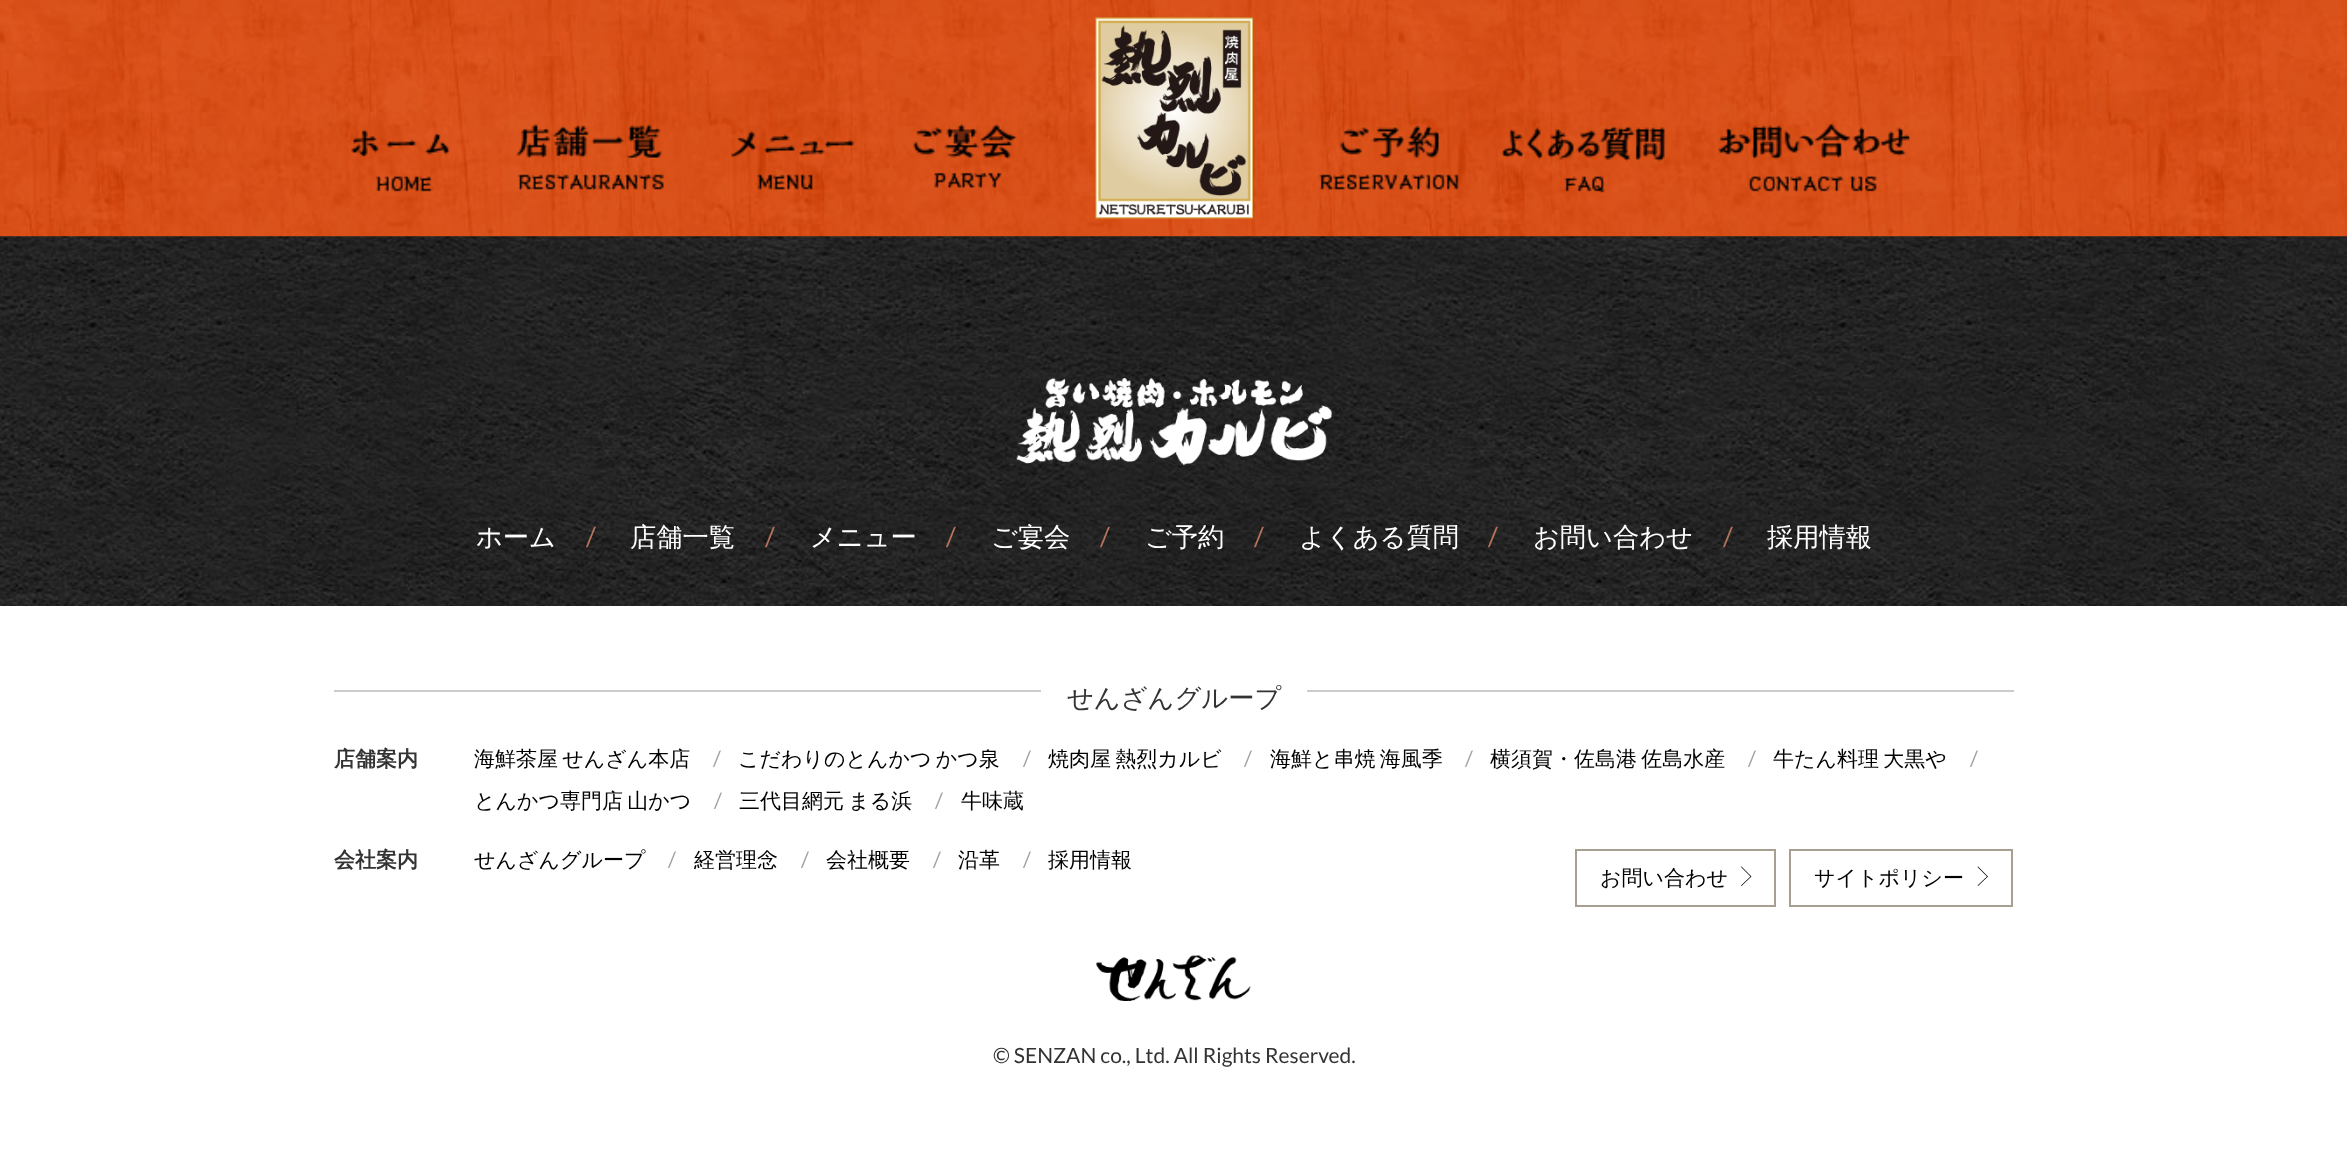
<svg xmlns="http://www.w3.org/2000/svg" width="2347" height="1150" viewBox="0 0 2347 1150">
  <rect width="100%" height="100%" fill="rgb(255,255,255)"/>
  <image x="0" y="236" width="2347" height="370" href="pic1.png"/>
  <image x="0" y="0" width="2347" height="237" href="pic2.png"/>
  <image x="1095" y="17" width="158" height="202" href="pic3.png"/>
  <image x="351" y="129" width="99" height="63" href="pic4.png"/>
  <image x="516" y="124" width="148" height="67" href="pic5.png"/>
  <image x="730" y="130" width="125" height="61" href="pic6.png"/>
  <image x="913" y="124" width="104" height="64" href="pic7.png"/>
  <image x="1319" y="125" width="140" height="66" href="pic8.png"/>
  <image x="1501" y="126" width="164" height="67" href="pic9.png"/>
  <image x="1718" y="123" width="192" height="69" href="pic10.png"/>
  <image x="1016" y="378" width="316" height="87" href="pic11.png"/>
  <text x="476" y="546" font-family="WenQuanYi Zen Hei" font-size="26.25" font-weight="500" fill="rgb(255,255,255)">ホーム</text>
  <text x="586" y="546" font-family="Lato" font-size="26.25" fill="rgb(181,117,92)">/</text>
  <text x="630" y="546" font-family="WenQuanYi Zen Hei" font-size="26.25" font-weight="500" fill="rgb(255,255,255)">店舗一覧</text>
  <text x="765" y="546" font-family="Lato" font-size="26.25" fill="rgb(181,117,92)">/</text>
  <text x="810" y="546" font-family="WenQuanYi Zen Hei" font-size="26.25" font-weight="500" fill="rgb(255,255,255)">メニュー</text>
  <text x="946" y="546" font-family="Lato" font-size="26.25" fill="rgb(181,117,92)">/</text>
  <text x="991" y="546" font-family="WenQuanYi Zen Hei" font-size="26.25" font-weight="500" fill="rgb(255,255,255)">ご宴会</text>
  <text x="1100" y="546" font-family="Lato" font-size="26.25" fill="rgb(181,117,92)">/</text>
  <text x="1145" y="546" font-family="WenQuanYi Zen Hei" font-size="26.25" font-weight="500" fill="rgb(255,255,255)">ご予約</text>
  <text x="1254" y="546" font-family="Lato" font-size="26.25" fill="rgb(181,117,92)">/</text>
  <text x="1299" y="546" font-family="WenQuanYi Zen Hei" font-size="26.25" font-weight="500" fill="rgb(255,255,255)">よくある質問</text>
  <text x="1488" y="546" font-family="Lato" font-size="26.25" fill="rgb(181,117,92)">/</text>
  <text x="1533" y="546" font-family="WenQuanYi Zen Hei" font-size="26.25" font-weight="500" fill="rgb(255,255,255)">お問い合わせ</text>
  <text x="1723" y="546" font-family="Lato" font-size="26.25" fill="rgb(181,117,92)">/</text>
  <text x="1767" y="546" font-family="WenQuanYi Zen Hei" font-size="26.25" font-weight="500" fill="rgb(255,255,255)">採用情報</text>
  <rect x="334" y="690" width="1680" height="2" fill="rgb(204,204,204)"/>
  <rect x="1041" y="690" width="266" height="2" fill="rgb(255,255,255)"/>
  <text x="1067" y="707" font-family="WenQuanYi Zen Hei" font-size="26.25" font-weight="500" fill="rgb(51,51,51)">せんざんグループ</text>
  <text x="334" y="766" font-family="WenQuanYi Zen Hei" font-size="21" font-weight="bold" fill="rgb(51,51,51)">店舗案内</text>
  <text x="474" y="766" word-spacing="-2" font-family="WenQuanYi Zen Hei" font-size="21" font-weight="500" fill="rgb(0,0,0)">海鮮茶屋 せんざん本店</text>
  <text x="713" y="766" font-family="Lato" font-size="21" fill="rgb(162,162,162)">/</text>
  <text x="738" y="766" word-spacing="-2" font-family="WenQuanYi Zen Hei" font-size="21" font-weight="500" fill="rgb(0,0,0)">こだわりのとんかつ かつ泉</text>
  <text x="1023" y="766" font-family="Lato" font-size="21" fill="rgb(162,162,162)">/</text>
  <text x="1048" y="766" word-spacing="-2" font-family="WenQuanYi Zen Hei" font-size="21" font-weight="500" fill="rgb(0,0,0)">焼肉屋 熱烈カルビ</text>
  <text x="1244" y="766" font-family="Lato" font-size="21" fill="rgb(162,162,162)">/</text>
  <text x="1270" y="766" word-spacing="-2" font-family="WenQuanYi Zen Hei" font-size="21" font-weight="500" fill="rgb(0,0,0)">海鮮と串焼 海風季</text>
  <text x="1465" y="766" font-family="Lato" font-size="21" fill="rgb(162,162,162)">/</text>
  <text x="1490" y="766" word-spacing="-2" font-family="WenQuanYi Zen Hei" font-size="21" font-weight="500" fill="rgb(0,0,0)">横須賀・佐島港 佐島水産</text>
  <text x="1748" y="766" font-family="Lato" font-size="21" fill="rgb(162,162,162)">/</text>
  <text x="1773" y="766" word-spacing="-2" font-family="WenQuanYi Zen Hei" font-size="21" font-weight="500" fill="rgb(0,0,0)">牛たん料理 大黒や</text>
  <text x="1970" y="766" font-family="Lato" font-size="21" fill="rgb(162,162,162)">/</text>
  <text x="474" y="808" word-spacing="-2" font-family="WenQuanYi Zen Hei" font-size="21" font-weight="500" fill="rgb(0,0,0)">とんかつ専門店 山かつ</text>
  <text x="714" y="808" font-family="Lato" font-size="21" fill="rgb(162,162,162)">/</text>
  <text x="739" y="808" word-spacing="-2" font-family="WenQuanYi Zen Hei" font-size="21" font-weight="500" fill="rgb(0,0,0)">三代目網元 まる浜</text>
  <text x="935" y="808" font-family="Lato" font-size="21" fill="rgb(162,162,162)">/</text>
  <text x="961" y="808" font-family="WenQuanYi Zen Hei" font-size="21" font-weight="500" fill="rgb(0,0,0)">牛味蔵</text>
  <text x="334" y="867" font-family="WenQuanYi Zen Hei" font-size="21" font-weight="bold" fill="rgb(51,51,51)">会社案内</text>
  <text x="474" y="867" font-family="WenQuanYi Zen Hei" font-size="21" font-weight="500" fill="rgb(0,0,0)">せんざんグループ</text>
  <text x="668" y="867" font-family="Lato" font-size="21" fill="rgb(162,162,162)">/</text>
  <text x="694" y="867" font-family="WenQuanYi Zen Hei" font-size="21" font-weight="500" fill="rgb(0,0,0)">経営理念</text>
  <text x="801" y="867" font-family="Lato" font-size="21" fill="rgb(162,162,162)">/</text>
  <text x="826" y="867" font-family="WenQuanYi Zen Hei" font-size="21" font-weight="500" fill="rgb(0,0,0)">会社概要</text>
  <text x="933" y="867" font-family="Lato" font-size="21" fill="rgb(162,162,162)">/</text>
  <text x="958" y="867" font-family="WenQuanYi Zen Hei" font-size="21" font-weight="500" fill="rgb(0,0,0)">沿革</text>
  <text x="1023" y="867" font-family="Lato" font-size="21" fill="rgb(162,162,162)">/</text>
  <text x="1048" y="867" font-family="WenQuanYi Zen Hei" font-size="21" font-weight="500" fill="rgb(0,0,0)">採用情報</text>
  <rect x="1576" y="850" width="199" height="56" fill="none" stroke="rgb(168,159,145)" stroke-width="2"/>
  <text x="1600" y="885" font-family="WenQuanYi Zen Hei" font-size="21" font-weight="500" fill="rgb(0,0,0)">お問い合わせ</text>
  <path d="M1741.5 886L1741 885.5L1750.5 876.5L1741 867L1741.5 866.5L1751.5 876.5Z" fill="rgb(0,0,0)"/>
  <rect x="1790" y="850" width="222" height="56" fill="none" stroke="rgb(168,159,145)" stroke-width="2"/>
  <text x="1814" y="885" font-family="WenQuanYi Zen Hei" font-size="21" font-weight="500" fill="rgb(0,0,0)">サイトポリシー</text>
  <path d="M1978 886L1977.5 885.5L1987 876.5L1977.5 867L1978 866.5L1988 876.5Z" fill="rgb(0,0,0)"/>
  <image x="1096" y="955" width="155" height="46" href="pic12.png"/>
  <text x="993" y="1063" font-family="Lato" font-size="21" fill="rgb(51,51,51)">© SENZAN co., Ltd. All Rights Reserved.</text>
</svg>
